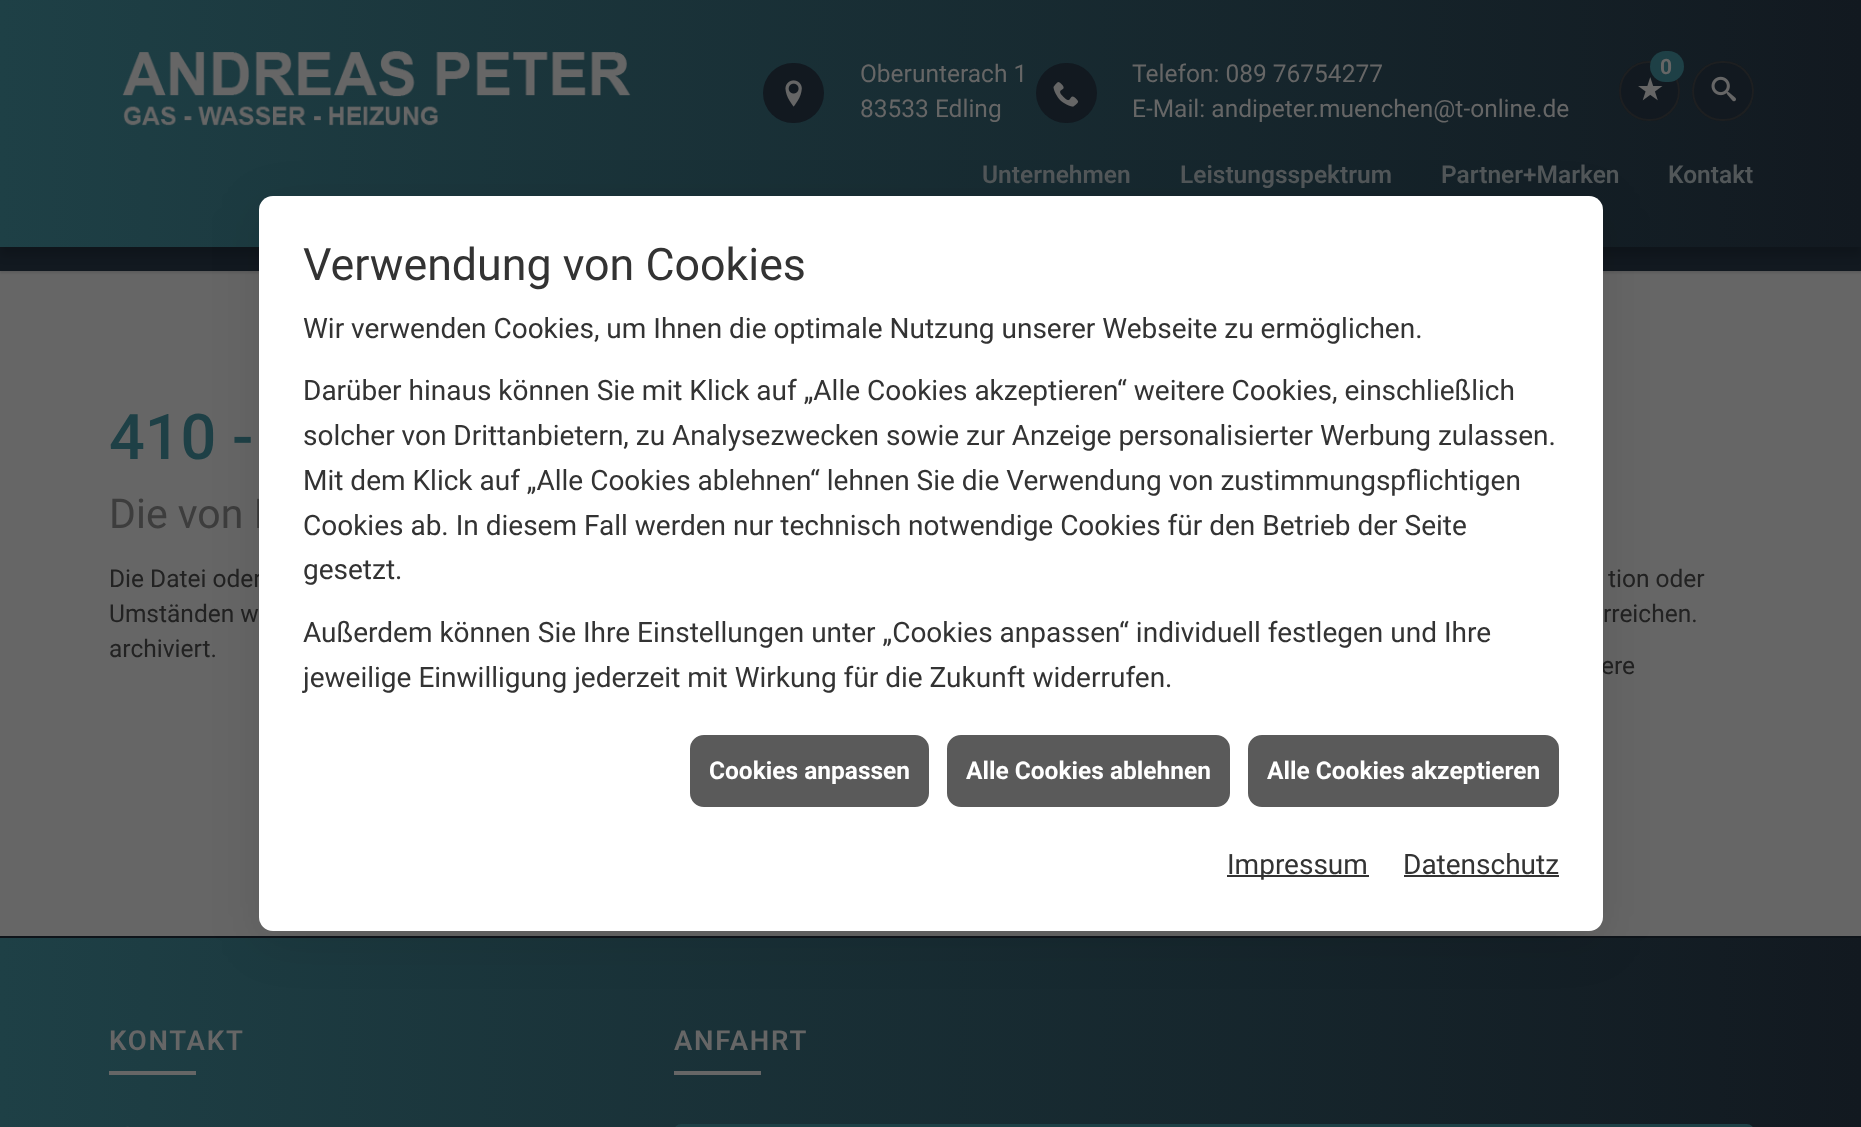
<svg xmlns="http://www.w3.org/2000/svg" width="1861" height="1127" viewBox="0 0 1861 1127">
  <defs>
    <linearGradient id="g1" gradientUnits="userSpaceOnUse" x1="0" y1="123" x2="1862" y2="123"><stop offset="0" stop-color="rgb(30,64,70)"/><stop offset="1" stop-color="rgb(18,25,32)"/></linearGradient>
    <linearGradient id="g2" gradientUnits="userSpaceOnUse" x1="0" y1="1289" x2="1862" y2="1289"><stop offset="0" stop-color="rgb(30,64,70)"/><stop offset="1" stop-color="rgb(18,25,32)"/></linearGradient>
  </defs>
  <rect width="100%" height="100%" fill="rgb(102,102,102)"/>
  <rect x="0" y="247" width="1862" height="26" fill="rgba(0,0,0,0.1)" filter="blur(1px)"/>
  <rect x="0" y="247" width="1861" height="24" fill="rgb(18,25,32)"/>
  <rect x="0" y="9" width="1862" height="247" fill="rgba(0,0,0,0.15)" filter="blur(4.5px)"/>
  <rect x="0" y="0" width="1861" height="247" fill="url(#g1)"/>
  <image x="122" y="51" width="509" height="75" href="pic1.png"/>
  <rect x="763" y="63" width="61" height="60" rx="30" fill="rgb(18,25,32)"/>
  <image x="785" y="80" width="17" height="27" href="pic2.png"/>
  <g font-family="Roboto" font-size="24.5" fill="rgb(102,102,102)">
    <text>
      <tspan x="860" y="82">Oberunterach 1</tspan>
      <tspan x="860" y="117">83533 Edling</tspan>
    </text>
  </g>
  <rect x="1036" y="63" width="61" height="60" rx="30" fill="rgb(18,25,32)"/>
  <image x="1053" y="82" width="26" height="25" href="pic3.png"/>
  <g font-family="Roboto" font-size="24.5" fill="rgb(102,102,102)">
    <text>
      <tspan x="1132" y="82">Telefon: 089 76754277</tspan>
      <tspan x="1132" y="117">E-Mail: andipeter.muenchen@t-online.de</tspan>
    </text>
  </g>
  <rect x="1619" y="61" width="61" height="60" rx="30" fill="rgb(18,25,32)"/>
  <rect x="1620" y="62" width="59" height="58" rx="29" fill="none" stroke="rgba(34,34,34,0.75)" stroke-width="2"/>
  <image x="1638" y="77" width="25" height="24" href="pic4.png"/>
  <rect x="1650" y="51" width="34" height="31" rx="15.5" fill="rgb(30,64,70)"/>
  <text x="1660" y="74" font-family="Roboto" font-size="21" font-weight="bold" fill="rgb(102,102,102)">0</text>
  <rect x="1692" y="61" width="62" height="60" rx="30" fill="rgb(18,25,32)"/>
  <rect x="1693" y="62" width="60" height="58" rx="29" fill="none" stroke="rgba(34,34,34,0.75)" stroke-width="2"/>
  <image x="1711" y="76" width="25" height="26" href="pic5.png"/>
  <g font-family="Roboto" font-size="24.5" font-weight="600" fill="rgb(82,87,89)">
    <text x="982" y="183">Unternehmen</text>
    <text x="1180" y="183">Leistungsspektrum</text>
    <text x="1441" y="183">Partner+Marken</text>
    <text x="1668" y="183">Kontakt</text>
  </g>
  <text x="109" y="459" font-family="Roboto" font-size="63" font-weight="500" fill="rgb(30,64,70)">410 -</text>
  <text x="109" y="528" font-family="Roboto" font-size="41" fill="rgb(61,61,61)">Die von I</text>
  <g font-family="Roboto" font-size="24.5" fill="rgb(34,34,34)">
    <text>
      <tspan x="109" y="587">Die Datei oder</tspan>
      <tspan x="109" y="622">Umständen w</tspan>
      <tspan x="109" y="657">archiviert.</tspan>
    </text>
    <text x="1608" y="587">tion oder</text>
    <text x="1603" y="622">rreichen.</text>
    <text x="1601" y="674">ere</text>
  </g>
  <rect x="0" y="938" width="1861" height="189" fill="url(#g2)"/>
  <rect x="0" y="936" width="1861" height="2" fill="rgb(14,20,26)"/>
  <text x="109" y="1050" font-family="Roboto" font-size="27.5" font-weight="600" letter-spacing="1.75" fill="rgb(102,102,102)">KONTAKT</text>
  <rect x="109" y="1071" width="87" height="4" fill="rgb(102,102,102)"/>
  <image x="126" y="1126" width="3" height="1" href="pic6.png"/>
  <text x="674" y="1050" font-family="Roboto" font-size="27.5" font-weight="600" letter-spacing="1.75" fill="rgb(102,102,102)">ANFAHRT</text>
  <rect x="674" y="1071" width="87" height="4" fill="rgb(102,102,102)"/>
  <rect x="676.5" y="1126.5" width="1075" height="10" rx="4.5" fill="none" stroke="rgb(30,64,70)" stroke-width="5"/>
  <rect x="259" y="207" width="1344" height="735" rx="14" fill="rgba(0,0,0,0.1)" filter="blur(24.5px)"/>
  <rect x="259" y="196" width="1344" height="735" rx="14" fill="rgb(255,255,255)"/>
  <text x="303" y="280" font-family="Roboto" font-size="44.75" fill="rgb(51,51,51)">Verwendung von Cookies</text>
  <g font-family="Roboto" font-size="28" fill="rgb(51,51,51)">
    <text x="303" y="338">Wir verwenden Cookies, um Ihnen die optimale Nutzung unserer Webseite zu ermöglichen.</text>
    <text>
      <tspan x="303" y="400">Darüber hinaus können Sie mit Klick auf „Alle Cookies akzeptieren“ weitere Cookies, einschließlich</tspan>
      <tspan x="303" y="445">solcher von Drittanbietern, zu Analysezwecken sowie zur Anzeige personalisierter Werbung zulassen.</tspan>
      <tspan x="303" y="490">Mit dem Klick auf „Alle Cookies ablehnen“ lehnen Sie die Verwendung von zustimmungspflichtigen</tspan>
      <tspan x="303" y="535">Cookies ab. In diesem Fall werden nur technisch notwendige Cookies für den Betrieb der Seite</tspan>
      <tspan x="303" y="579">gesetzt.</tspan>
    </text>
    <text>
      <tspan x="303" y="642">Außerdem können Sie Ihre Einstellungen unter „Cookies anpassen“ individuell festlegen und Ihre</tspan>
      <tspan x="303" y="687">jeweilige Einwilligung jederzeit mit Wirkung für die Zukunft widerrufen.</tspan>
    </text>
  </g>
  <rect x="691" y="736" width="237" height="70" rx="13" fill="rgb(90,90,90)" stroke="rgb(90,90,90)" stroke-width="2"/>
  <text x="709" y="779" font-family="Roboto" font-size="24.5" font-weight="bold" fill="rgb(255,255,255)">Cookies anpassen</text>
  <rect x="948" y="736" width="281" height="70" rx="13" fill="rgb(90,90,90)" stroke="rgb(90,90,90)" stroke-width="2"/>
  <text x="966" y="779" font-family="Roboto" font-size="24.5" font-weight="bold" fill="rgb(255,255,255)">Alle Cookies ablehnen</text>
  <rect x="1249" y="736" width="309" height="70" rx="13" fill="rgb(90,90,90)" stroke="rgb(90,90,90)" stroke-width="2"/>
  <text x="1267" y="779" font-family="Roboto" font-size="24.5" font-weight="bold" fill="rgb(255,255,255)">Alle Cookies akzeptieren</text>
  <rect x="1227" y="875" width="142" height="2" fill="rgb(51,51,51)"/>
  <g font-family="Roboto" font-size="28" fill="rgb(51,51,51)">
    <text x="1227" y="874">Impressum</text>
    <text x="1403" y="874">Datenschutz</text>
  </g>
  <rect x="1404" y="875" width="155" height="2" fill="rgb(51,51,51)"/>
</svg>
